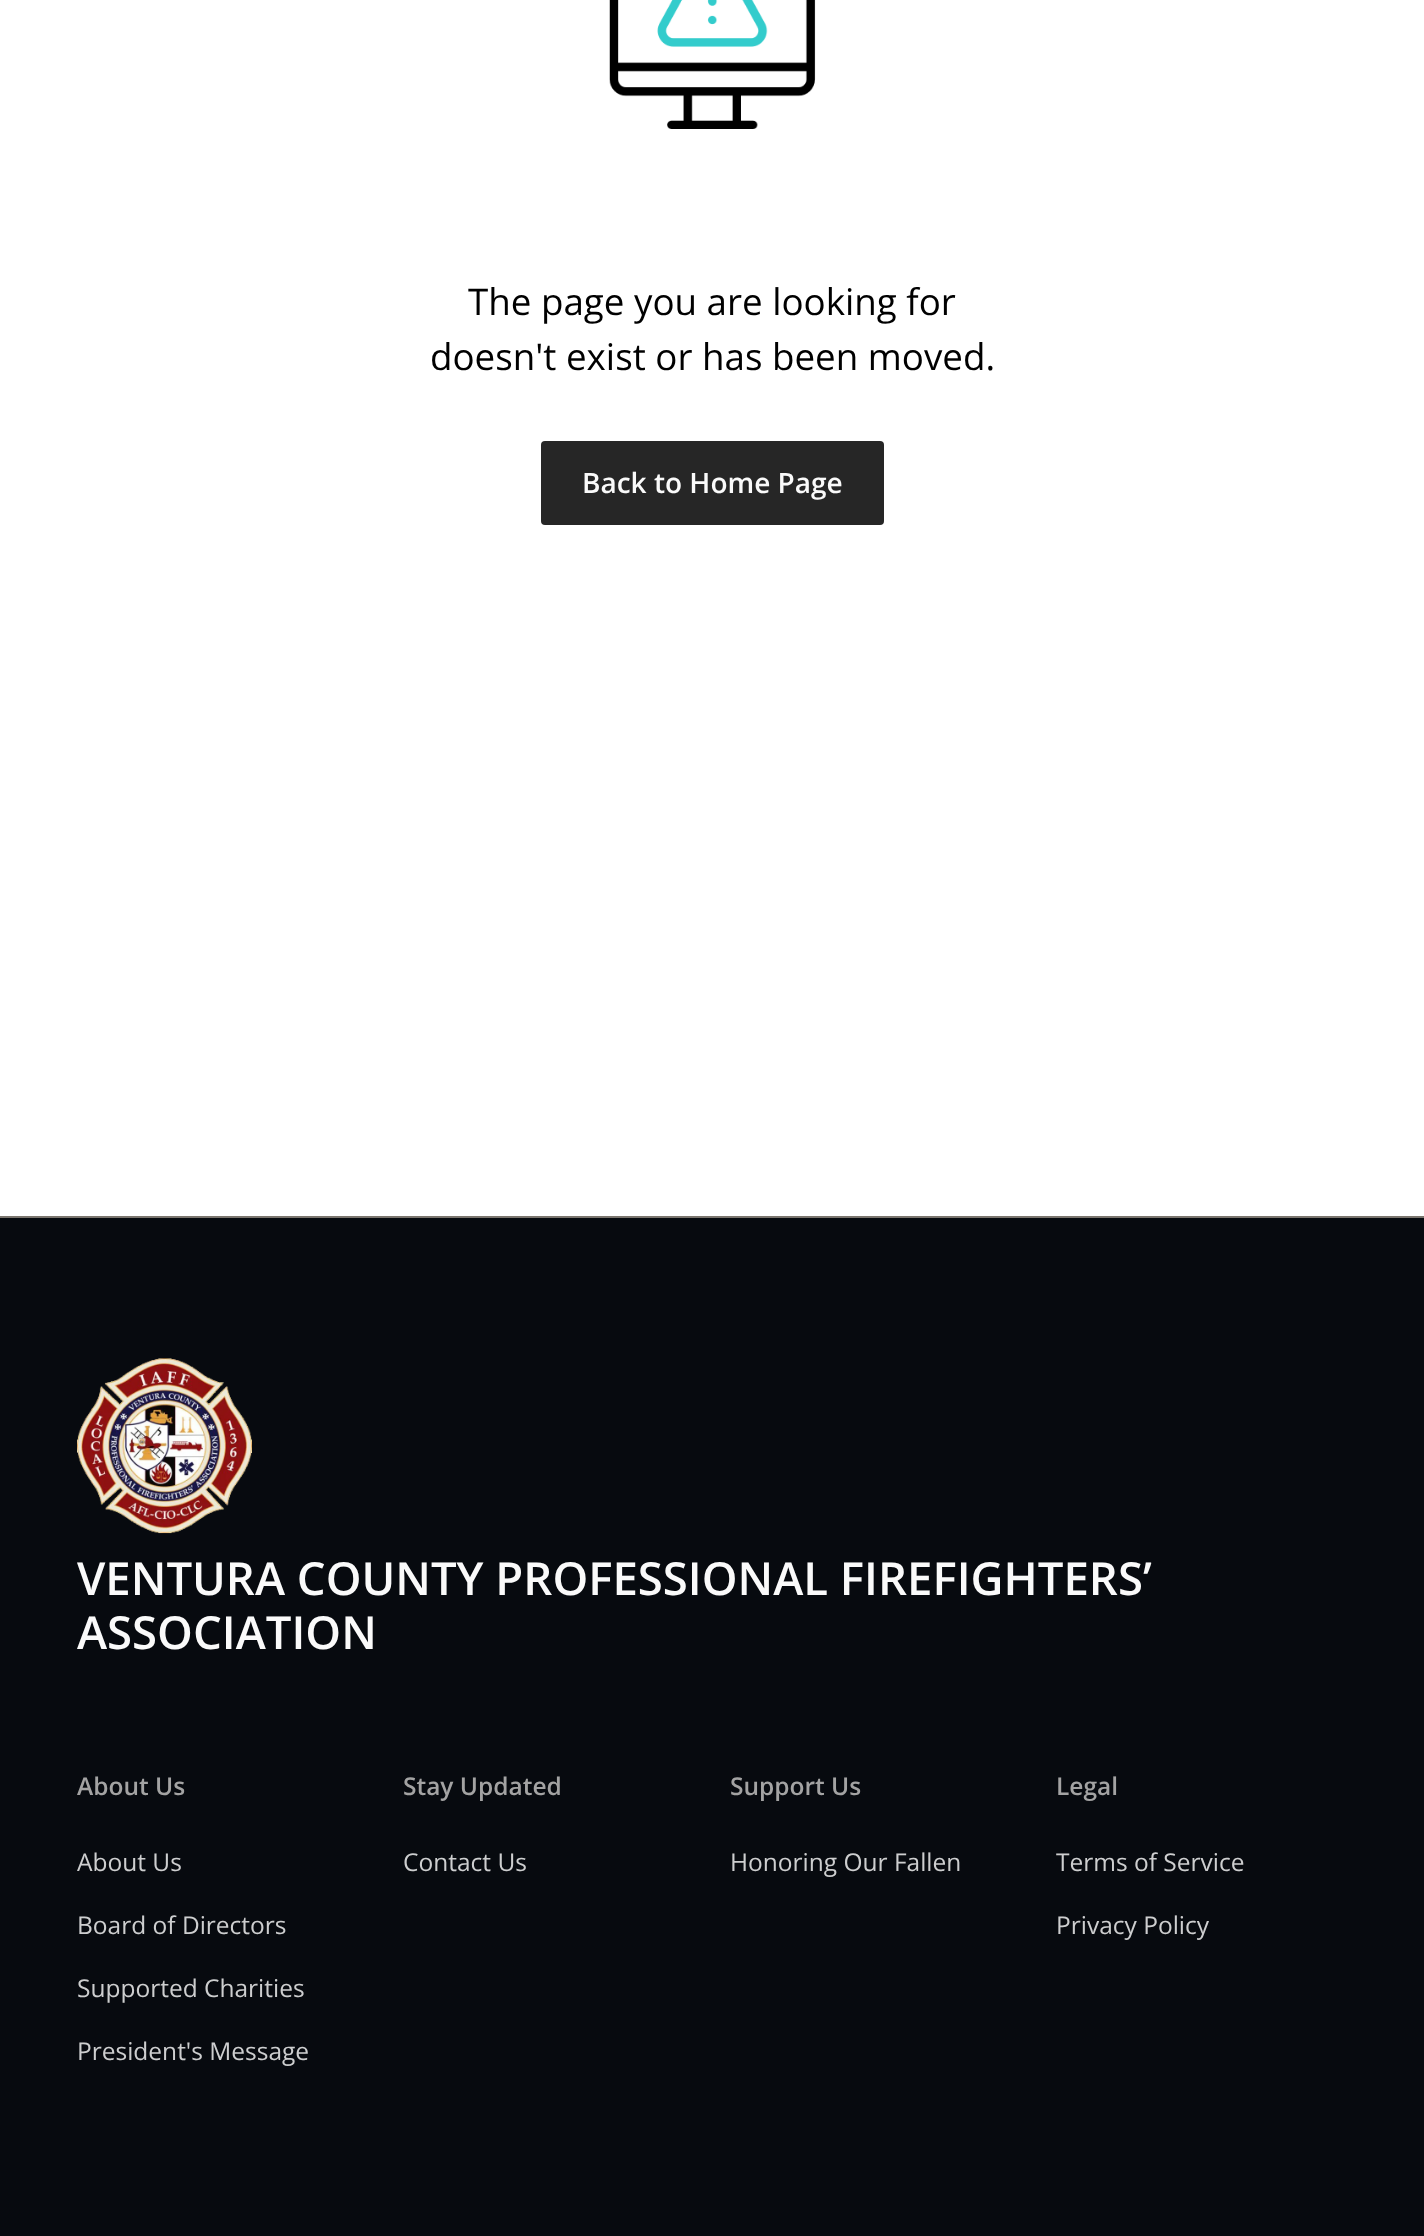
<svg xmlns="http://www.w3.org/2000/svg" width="1424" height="2236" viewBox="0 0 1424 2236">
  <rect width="100%" height="100%" fill="rgb(255,255,255)"/>
  <image x="609" y="0" width="207" height="129" href="pic1.png"/>
  <g font-family="Open Sans" font-size="36.75" fill="rgb(0,0,0)">
    <text x="468" y="315">The page you are looking for</text>
    <text x="430" y="370">doesn't exist or has been moved.</text>
  </g>
  <rect x="541" y="441" width="343" height="84" rx="4" fill="rgb(38,38,38)"/>
  <text x="582" y="493" font-family="Open Sans" font-size="28" font-weight="600" fill="rgb(250,250,250)">Back to Home Page</text>
  <rect x="0" y="1218" width="1424" height="1018" fill="rgb(7,10,15)"/>
  <rect x="0" y="1216" width="1424" height="2" fill="rgb(122,117,110)"/>
  <image x="77" y="1358" width="175" height="176" href="pic2.png"/>
  <g font-family="Open Sans" font-size="45.5" font-weight="600" fill="rgb(250,250,250)">
    <text>
      <tspan x="77" y="1595">VENTURA COUNTY PROFESSIONAL FIREFIGHTERS’</tspan>
      <tspan x="77" y="1649">ASSOCIATION</tspan>
    </text>
  </g>
  <text x="77" y="1795" font-family="Open Sans" font-size="24.5" font-weight="600" fill="rgb(163,163,163)">About Us</text>
  <g font-family="Open Sans" font-size="24.5" fill="rgb(205,206,207)">
    <text x="77" y="1871">About Us</text>
    <text x="77" y="1934">Board of Directors</text>
    <text x="77" y="1997">Supported Charities</text>
    <text x="77" y="2060">President's Message</text>
  </g>
  <text x="403" y="1795" font-family="Open Sans" font-size="24.5" font-weight="600" fill="rgb(163,163,163)">Stay Updated</text>
  <text x="403" y="1871" font-family="Open Sans" font-size="24.5" fill="rgb(205,206,207)">Contact Us</text>
  <text x="730" y="1795" font-family="Open Sans" font-size="24.5" font-weight="600" fill="rgb(163,163,163)">Support Us</text>
  <text x="730" y="1871" font-family="Open Sans" font-size="24.5" fill="rgb(205,206,207)">Honoring Our Fallen</text>
  <text x="1056" y="1795" font-family="Open Sans" font-size="24.5" font-weight="600" fill="rgb(163,163,163)">Legal</text>
  <g font-family="Open Sans" font-size="24.5" fill="rgb(205,206,207)">
    <text x="1056" y="1871">Terms of Service</text>
    <text x="1056" y="1934">Privacy Policy</text>
  </g>
</svg>
